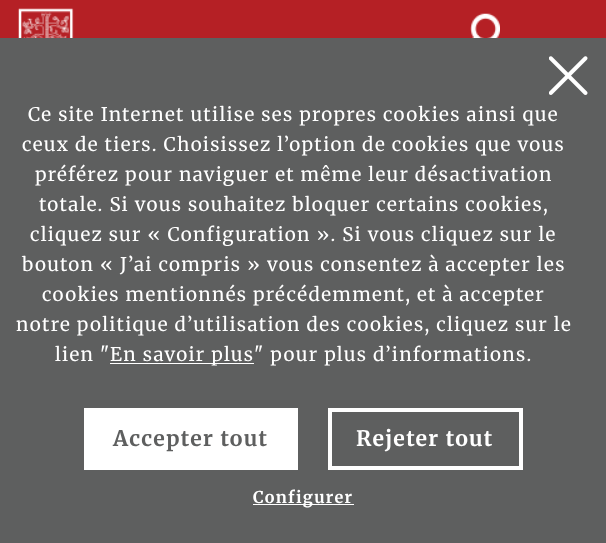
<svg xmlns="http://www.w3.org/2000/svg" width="606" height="543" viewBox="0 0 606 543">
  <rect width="100%" height="100%" fill="rgb(181,32,37)"/>
  <image x="18" y="8" width="56" height="30" href="pic1.png"/>
  <image x="470" y="13" width="30" height="25" href="pic2.png"/>
  <rect x="0" y="38" width="606" height="505" fill="rgb(94,95,95)"/>
  <image x="549" y="56" width="39" height="39" href="pic3.png"/>
  <g font-family="Merriweather" font-size="18.75" letter-spacing="1.3" fill="rgb(255,255,255)">
    <text x="28" y="121">Ce site Internet utilise ses propres cookies ainsi que</text>
    <text x="22" y="151">ceux de tiers. Choisissez l’option de cookies que vous</text>
    <text x="35" y="181">préférez pour naviguer et même leur désactivation</text>
    <text x="39" y="211">totale. Si vous souhaitez bloquer certains cookies,</text>
    <text x="30" y="241">cliquez sur « Configuration ». Si vous cliquez sur le</text>
    <text x="22" y="271">bouton « J’ai compris » vous consentez à accepter les</text>
    <text x="42" y="301">cookies mentionnés précédemment, et à accepter</text>
    <text x="16" y="331">notre politique d’utilisation des cookies, cliquez sur le</text>
    <text x="55" y="361">lien "</text>
  </g>
  <rect x="110" y="363" width="144" height="1" fill="rgb(255,255,255)"/>
  <g font-family="Merriweather" font-size="18.75" letter-spacing="1.3" fill="rgb(255,255,255)">
    <text x="110" y="361">En savoir plus</text>
    <text x="254" y="361">" pour plus d’informations.</text>
  </g>
  <rect x="84" y="408" width="214" height="62" fill="rgb(255,255,255)"/>
  <text x="113" y="446" font-family="Merriweather" font-size="21.25" font-weight="bold" letter-spacing="1.3" fill="rgb(94,95,95)">Accepter tout</text>
  <rect x="330" y="410" width="191" height="58" fill="none" stroke="rgb(255,255,255)" stroke-width="4"/>
  <text x="356" y="446" font-family="Merriweather" font-size="21.25" font-weight="bold" letter-spacing="1.3" fill="rgb(255,255,255)">Rejeter tout</text>
  <rect x="253" y="504" width="101" height="1" fill="rgb(255,255,255)"/>
  <text x="253" y="503" font-family="Merriweather" font-size="16.25" font-weight="bold" letter-spacing="1.3" fill="rgb(255,255,255)">Configurer</text>
</svg>
